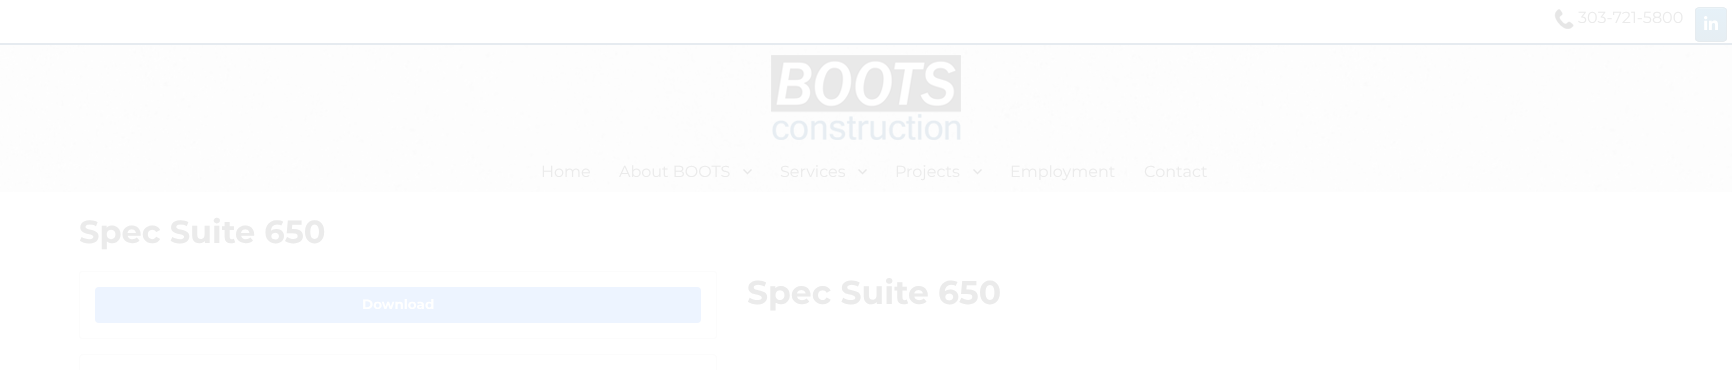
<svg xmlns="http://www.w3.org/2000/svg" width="1732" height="370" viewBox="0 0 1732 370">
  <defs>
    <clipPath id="clip1"><rect x="1695" y="7" width="32" height="35" rx="4"/></clipPath>
    <linearGradient id="g1" gradientUnits="userSpaceOnUse" x1="1696" y1="41" x2="1696" y2="8"><stop offset="0" stop-color="rgb(230,238,243)"/><stop offset="1" stop-color="rgb(230,241,248)"/></linearGradient>
  </defs>
  <rect width="100%" height="100%" fill="rgb(255,255,255)"/>
  <rect x="0" y="43" width="1732" height="2" fill="rgb(230,235,240)"/>
  <image x="1554" y="9" width="20" height="20" href="pic1.png"/>
  <text x="1578" y="23" font-family="Montserrat" font-size="16" font-weight="100" fill="rgb(235,235,235)">303-721-5800</text>
  <g clip-path="url(#clip1)">
    <rect x="1695" y="8" width="32" height="33" fill="url(#g1)"/>
  </g>
  <path d="M1699 9H1719C1726 9 1726 9 1726 16C1726 9 1727 8 1719 8H1703C1699.5 8 1696 7 1696 11.5C1696.5 10 1697.5 9 1699 9ZM1696 39V36Z" fill="rgb(235,244,249)" fill-rule="evenodd"/>
  <path d="M1696.5 8.5C1697 8 1698 7.5 1699 7.5H1723C1724 7.5 1725 8 1725.5 8.5" fill="none" stroke="rgb(230,237,241)"/>
  <path d="M1725.5 8.5C1726 9 1726.5 10 1726.5 11V38C1726.5 39 1726 40 1725.5 40.5" fill="none" stroke="rgb(230,236,240)"/>
  <path d="M1725.5 40.5C1725 41 1724 41.5 1723 41.5H1699C1698 41.5 1697 41 1696.5 40.5" fill="none" stroke="rgb(230,235,238)"/>
  <path d="M1696.5 40.5C1696 40 1695.5 39 1695.5 38V11C1695.5 10 1696 9 1696.5 8.5" fill="none" stroke="rgb(230,236,240)"/>
  <image x="1704" y="16" width="14" height="14" href="pic2.png"/>
  <image x="0" y="45" width="1732" height="147" href="pic3.png"/>
  <image x="771" y="55" width="190" height="85" href="pic4.png"/>
  <g font-family="Montserrat" font-size="16" font-weight="100" fill="rgb(235,235,235)">
    <text x="541" y="177">Home</text>
    <text x="619" y="177">About BOOTS</text>
  </g>
  <image x="743" y="169" width="9" height="6" href="pic5.png"/>
  <text x="780" y="177" font-family="Montserrat" font-size="16" font-weight="100" fill="rgb(235,235,235)">Services</text>
  <image x="858" y="169" width="9" height="6" href="pic6.png"/>
  <text x="895" y="177" font-family="Montserrat" font-size="16" font-weight="100" fill="rgb(235,235,235)">Projects</text>
  <image x="973" y="169" width="9" height="6" href="pic7.png"/>
  <g font-family="Montserrat" font-size="16" font-weight="100" fill="rgb(235,235,235)">
    <text x="1010" y="177">Employment</text>
    <text x="1144" y="177">Contact</text>
  </g>
  <text x="79" y="243" font-family="'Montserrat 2'" font-size="32" font-weight="100" fill="rgb(235,235,235)">Spec Suite 650</text>
  <rect x="79.5" y="271.5" width="637" height="67" rx="2.5" fill="none" stroke="rgb(252,252,252)"/>
  <rect x="95" y="287" width="606" height="36" rx="4" fill="rgb(237,244,255)"/>
  <text x="362" y="309" font-family="'Montserrat 2'" font-size="13.5" font-weight="100" fill="rgb(255,255,255)">Download</text>
  <path d="M83 354.5H713C715 354.5 716.5 356 716.5 358V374.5H79.5V358C79.5 356 81 354.5 83 354.5Z" fill="none" stroke="rgb(252,252,252)"/>
  <text x="747" y="304" font-family="'Montserrat 2'" font-size="33" font-weight="100" fill="rgb(235,235,235)">Spec Suite 650</text>
</svg>
